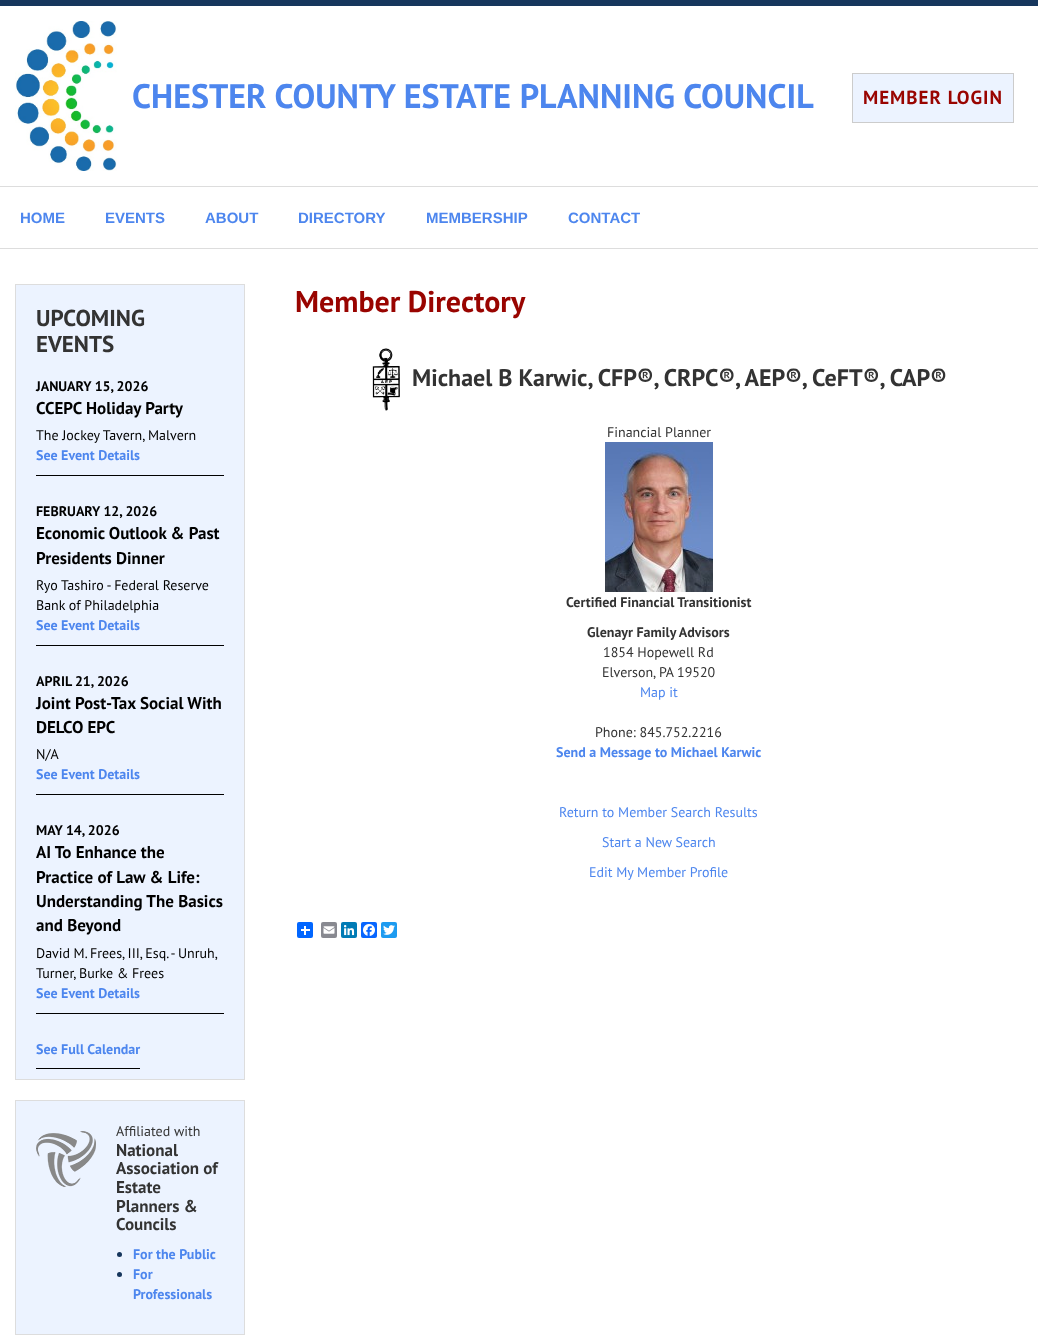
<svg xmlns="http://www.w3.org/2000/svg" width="1038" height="1344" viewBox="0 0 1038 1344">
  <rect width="100%" height="100%" fill="rgb(255,255,255)"/>
  <rect x="0" y="0" width="1038" height="6" fill="rgb(22,54,93)"/>
  <rect x="0" y="186" width="1038" height="1" fill="rgb(221,221,221)"/>
  <image x="15" y="21" width="102" height="150" href="pic1.png"/>
  <text x="132" y="108" font-family="PT Sans" font-size="34" font-weight="bold" fill="rgb(77,134,238)">CHESTER COUNTY ESTATE PLANNING COUNCIL</text>
  <rect x="852.5" y="73.5" width="161" height="49" fill="rgb(236,243,255)" stroke="rgb(204,204,204)"/>
  <text x="863" y="104" font-family="PT Sans" font-size="19" font-weight="bold" letter-spacing="1" fill="rgb(153,4,0)">MEMBER LOGIN</text>
  <rect x="0" y="248" width="1038" height="1" fill="rgb(221,221,221)"/>
  <g font-family="Liberation Sans" font-size="15" font-weight="bold" fill="rgb(77,134,238)">
    <text x="20" y="223">HOME</text>
    <text x="105" y="223">EVENTS</text>
    <text x="205" y="223">ABOUT</text>
    <text x="298" y="223">DIRECTORY</text>
    <text x="426" y="223">MEMBERSHIP</text>
    <text x="568" y="223">CONTACT</text>
  </g>
  <rect x="15.5" y="284.5" width="229" height="795" fill="rgb(236,243,255)" stroke="rgb(221,221,221)"/>
  <g font-family="PT Sans" font-size="23" font-weight="bold" fill="rgb(51,51,51)">
    <text>
      <tspan x="36" y="326">UPCOMING</tspan>
      <tspan x="36" y="352">EVENTS</tspan>
    </text>
  </g>
  <rect x="36" y="475" width="188" height="1" fill="rgb(0,0,0)"/>
  <text x="36" y="391" font-family="PT Sans" font-size="14" font-weight="bold" fill="rgb(0,0,0)">JANUARY 15, 2026</text>
  <text x="36" y="414" font-family="PT Sans" font-size="17" font-weight="bold" fill="rgb(0,0,0)">CCEPC Holiday Party</text>
  <text x="36" y="440" font-family="PT Sans" font-size="14" fill="rgb(0,0,0)">The Jockey Tavern, Malvern</text>
  <text x="36" y="460" font-family="PT Sans" font-size="14" font-weight="bold" fill="rgb(77,134,238)">See Event Details</text>
  <rect x="36" y="645" width="188" height="1" fill="rgb(0,0,0)"/>
  <text x="36" y="516" font-family="PT Sans" font-size="14" font-weight="bold" fill="rgb(0,0,0)">FEBRUARY 12, 2026</text>
  <g font-family="PT Sans" font-size="17" font-weight="bold" fill="rgb(0,0,0)">
    <text>
      <tspan x="36" y="539">Economic Outlook &amp; Past</tspan>
      <tspan x="36" y="564">Presidents Dinner</tspan>
    </text>
  </g>
  <g font-family="PT Sans" font-size="14" fill="rgb(0,0,0)">
    <text>
      <tspan x="36" y="590">Ryo Tashiro - Federal Reserve</tspan>
      <tspan x="36" y="610">Bank of Philadelphia</tspan>
    </text>
  </g>
  <text x="36" y="630" font-family="PT Sans" font-size="14" font-weight="bold" fill="rgb(77,134,238)">See Event Details</text>
  <rect x="36" y="794" width="188" height="1" fill="rgb(0,0,0)"/>
  <text x="36" y="686" font-family="PT Sans" font-size="14" font-weight="bold" fill="rgb(0,0,0)">APRIL 21, 2026</text>
  <g font-family="PT Sans" font-size="17" font-weight="bold" fill="rgb(0,0,0)">
    <text>
      <tspan x="36" y="709">Joint Post-Tax Social With</tspan>
      <tspan x="36" y="733">DELCO EPC</tspan>
    </text>
  </g>
  <text x="36" y="759" font-family="PT Sans" font-size="14" fill="rgb(0,0,0)">N/A</text>
  <text x="36" y="779" font-family="PT Sans" font-size="14" font-weight="bold" fill="rgb(77,134,238)">See Event Details</text>
  <rect x="36" y="1013" width="188" height="1" fill="rgb(0,0,0)"/>
  <text x="36" y="835" font-family="PT Sans" font-size="14" font-weight="bold" fill="rgb(0,0,0)">MAY 14, 2026</text>
  <g font-family="PT Sans" font-size="17" font-weight="bold" fill="rgb(0,0,0)">
    <text>
      <tspan x="36" y="858">AI To Enhance the</tspan>
      <tspan x="36" y="883">Practice of Law &amp; Life:</tspan>
      <tspan x="36" y="907">Understanding The Basics</tspan>
      <tspan x="36" y="931">and Beyond</tspan>
    </text>
  </g>
  <g font-family="PT Sans" font-size="14" fill="rgb(0,0,0)">
    <text>
      <tspan x="36" y="958" word-spacing="-0.25">David M. Frees, III, Esq. - Unruh,</tspan>
      <tspan x="36" y="978">Turner, Burke &amp; Frees</tspan>
    </text>
  </g>
  <g font-family="PT Sans" font-size="14" font-weight="bold" fill="rgb(77,134,238)">
    <text x="36" y="998">See Event Details</text>
    <text x="36" y="1054">See Full Calendar</text>
  </g>
  <rect x="36" y="1068" width="104" height="1" fill="rgb(0,0,0)"/>
  <rect x="15.5" y="1100.5" width="229" height="234" fill="rgb(236,243,255)" stroke="rgb(221,221,221)"/>
  <image x="36" y="1131" width="60" height="56" href="pic2.png"/>
  <text x="116" y="1136" font-family="PT Sans" font-size="14" fill="rgb(51,51,51)">Affiliated with</text>
  <g font-family="PT Sans" font-size="17" font-weight="bold" fill="rgb(51,51,51)">
    <text>
      <tspan x="116" y="1156">National</tspan>
      <tspan x="116" y="1174">Association of</tspan>
      <tspan x="116" y="1193">Estate</tspan>
      <tspan x="116" y="1212">Planners &amp;</tspan>
      <tspan x="116" y="1230">Councils</tspan>
    </text>
  </g>
  <circle cx="119.5" cy="1254.5" r="2.5" fill="rgb(22,54,93)"/>
  <text x="133" y="1259" font-family="PT Sans" font-size="14" font-weight="bold" fill="rgb(77,134,238)">For the Public</text>
  <circle cx="119.5" cy="1274.5" r="2.5" fill="rgb(22,54,93)"/>
  <g font-family="PT Sans" font-size="14" font-weight="bold" fill="rgb(77,134,238)">
    <text>
      <tspan x="133" y="1279">For</tspan>
      <tspan x="133" y="1299">Professionals</tspan>
    </text>
  </g>
  <text x="295" y="312" font-family="PT Sans" font-size="30" font-weight="bold" fill="rgb(153,4,0)">Member Directory</text>
  <image x="372" y="348" width="28" height="63" href="pic3.png"/>
  <text x="412" y="386" font-family="PT Sans" font-size="24" font-weight="bold" fill="rgb(51,51,51)">Michael B Karwic, CFP®, CRPC®, AEP®, CeFT®, CAP®</text>
  <text x="607" y="437" font-family="PT Sans" font-size="14" fill="rgb(51,51,51)">Financial Planner</text>
  <image x="605" y="442" width="108" height="150" href="pic4.png"/>
  <g font-family="PT Sans" font-size="14" font-weight="bold" fill="rgb(51,51,51)">
    <text x="566" y="607">Certified Financial Transitionist</text>
    <text x="587" y="637">Glenayr Family Advisors</text>
  </g>
  <g font-family="PT Sans" font-size="14" fill="rgb(51,51,51)">
    <text x="603" y="657">1854 Hopewell Rd</text>
    <text x="602" y="677">Elverson, PA</text>
    <text x="677" y="677">19520</text>
  </g>
  <text x="640" y="697" font-family="PT Sans" font-size="14" fill="rgb(77,134,238)">Map it</text>
  <text x="595" y="737" font-family="PT Sans" font-size="14" fill="rgb(51,51,51)">Phone: 845.752.2216</text>
  <text x="556" y="757" font-family="PT Sans" font-size="14" font-weight="bold" fill="rgb(77,134,238)">Send a Message to Michael Karwic</text>
  <g font-family="PT Sans" font-size="14" fill="rgb(77,134,238)">
    <text x="559" y="817">Return to Member Search Results</text>
    <text x="602" y="847">Start a New Search</text>
    <text x="589" y="877">Edit My Member Profile</text>
  </g>
  <rect x="297" y="922" width="16" height="16" rx="2" fill="rgb(1,102,255)"/>
  <rect x="304" y="926" width="2" height="9" fill="rgb(255,255,255)"/>
  <rect x="301" y="929" width="9" height="2" fill="rgb(255,255,255)"/>
  <rect x="321" y="922" width="16" height="16" rx="2" fill="rgb(136,137,144)"/>
  <image x="323" y="926" width="12" height="8" href="pic5.png"/>
  <rect x="341" y="922" width="16" height="16" rx="2" fill="rgb(0,123,181)"/>
  <image x="344" y="925" width="11" height="11" href="pic6.png"/>
  <rect x="361" y="922" width="16" height="16" rx="2" fill="rgb(8,102,255)"/>
  <image x="363" y="924" width="12" height="12" href="pic7.png"/>
  <rect x="381" y="922" width="16" height="16" rx="2" fill="rgb(29,155,240)"/>
  <image x="383" y="925" width="12" height="10" href="pic8.png"/>
</svg>
